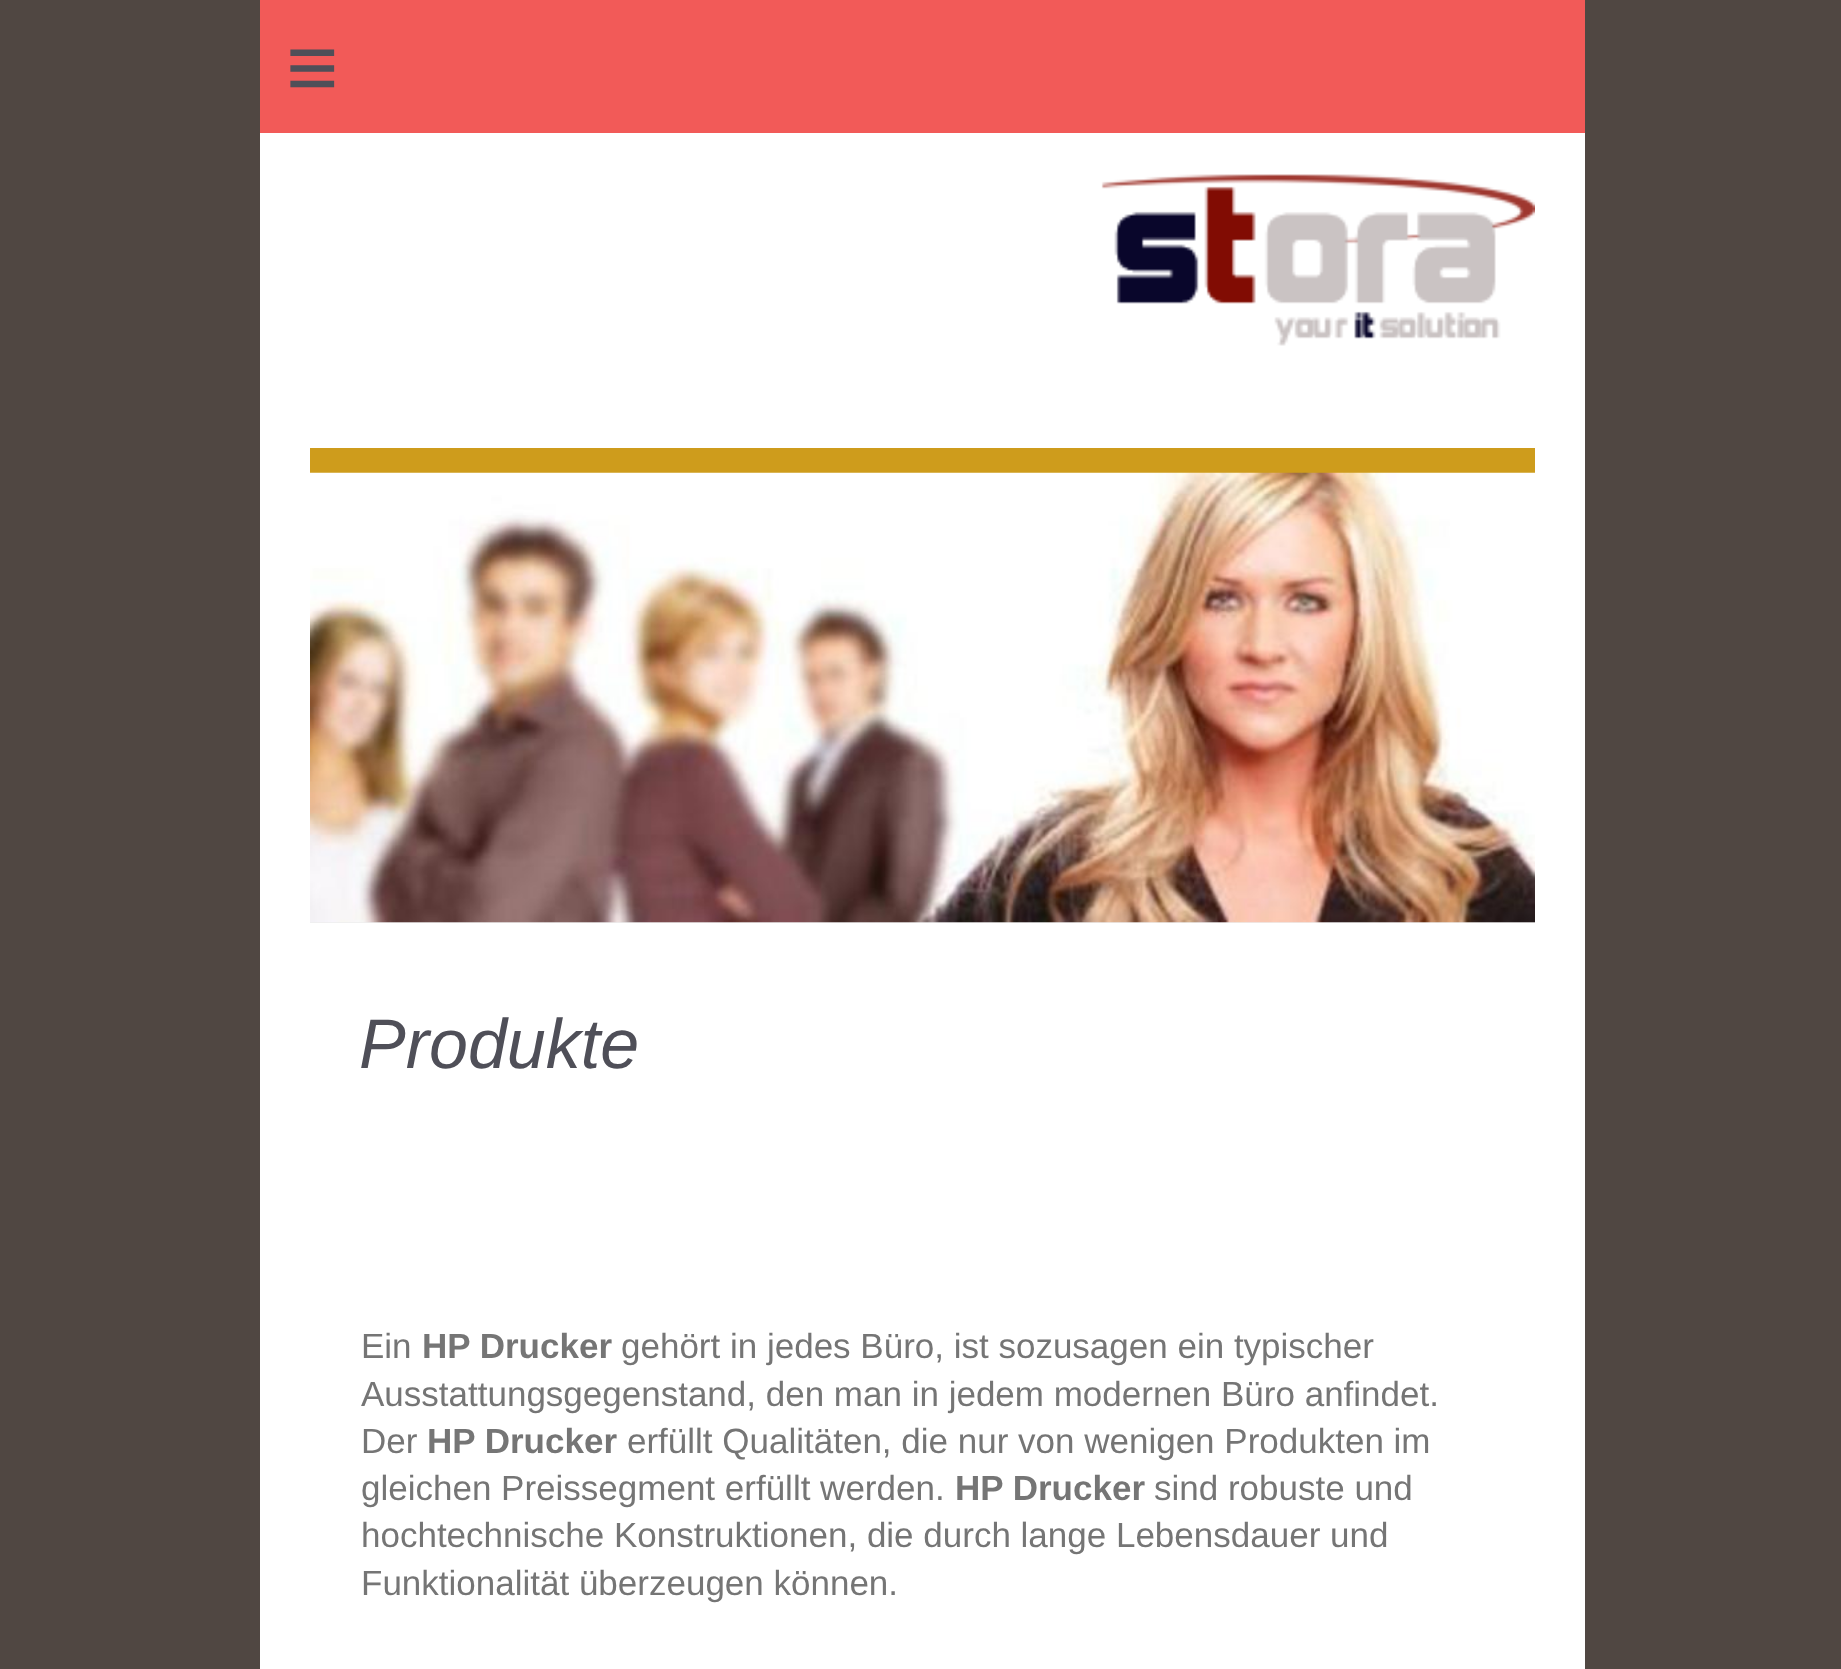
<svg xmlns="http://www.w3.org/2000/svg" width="1841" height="1669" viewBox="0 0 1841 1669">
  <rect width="100%" height="100%" fill="rgb(80,71,66)"/>
  <rect x="260" y="0" width="1325" height="133" fill="rgb(242,90,88)"/>
  <text x="286" y="98" font-family="Liberation Sans" font-size="90" letter-spacing="26" fill="rgb(79,79,88)">≡</text>
  <rect x="260" y="133" width="1325" height="1536" fill="rgb(255,255,255)"/>
  <image x="1101" y="174" width="434" height="172" href="pic1.png"/>
  <rect x="310" y="448" width="1225" height="25" fill="rgb(206,156,28)"/>
  <rect x="310" y="922" width="1225" height="1" fill="rgb(238,238,238)"/>
  <image x="310" y="472" width="1225" height="451" href="pic2.png"/>
  <text x="359" y="1068" font-family="Liberation Sans" font-size="70" font-style="italic" fill="rgb(79,79,88)">Produkte</text>
  <text x="361" y="1358" font-family="Liberation Sans" font-size="35" fill="rgb(117,117,117)">Ein</text>
  <text x="422" y="1358" font-family="Liberation Sans" font-size="35" font-weight="bold" fill="rgb(117,117,117)">HP Drucker</text>
  <g font-family="Liberation Sans" font-size="35" fill="rgb(117,117,117)">
    <text x="621" y="1358">gehört in jedes Büro, ist sozusagen ein typischer</text>
    <text>
      <tspan x="361" y="1406">Ausstattungsgegenstand, den man in jedem modernen Büro anfindet.</tspan>
      <tspan x="361" y="1453">Der</tspan>
    </text>
  </g>
  <text x="427" y="1453" font-family="Liberation Sans" font-size="35" font-weight="bold" fill="rgb(117,117,117)">HP Drucker</text>
  <g font-family="Liberation Sans" font-size="35" fill="rgb(117,117,117)">
    <text x="627" y="1453">erfüllt Qualitäten, die nur von wenigen Produkten im</text>
    <text x="361" y="1500">gleichen Preissegment erfüllt werden.</text>
  </g>
  <text x="955" y="1500" font-family="Liberation Sans" font-size="35" font-weight="bold" fill="rgb(117,117,117)">HP Drucker</text>
  <g font-family="Liberation Sans" font-size="35" fill="rgb(117,117,117)">
    <text x="1154" y="1500">sind robuste und</text>
    <text>
      <tspan x="361" y="1547">hochtechnische Konstruktionen, die durch lange Lebensdauer und</tspan>
      <tspan x="361" y="1595">Funktionalität überzeugen können.</tspan>
    </text>
  </g>
</svg>
